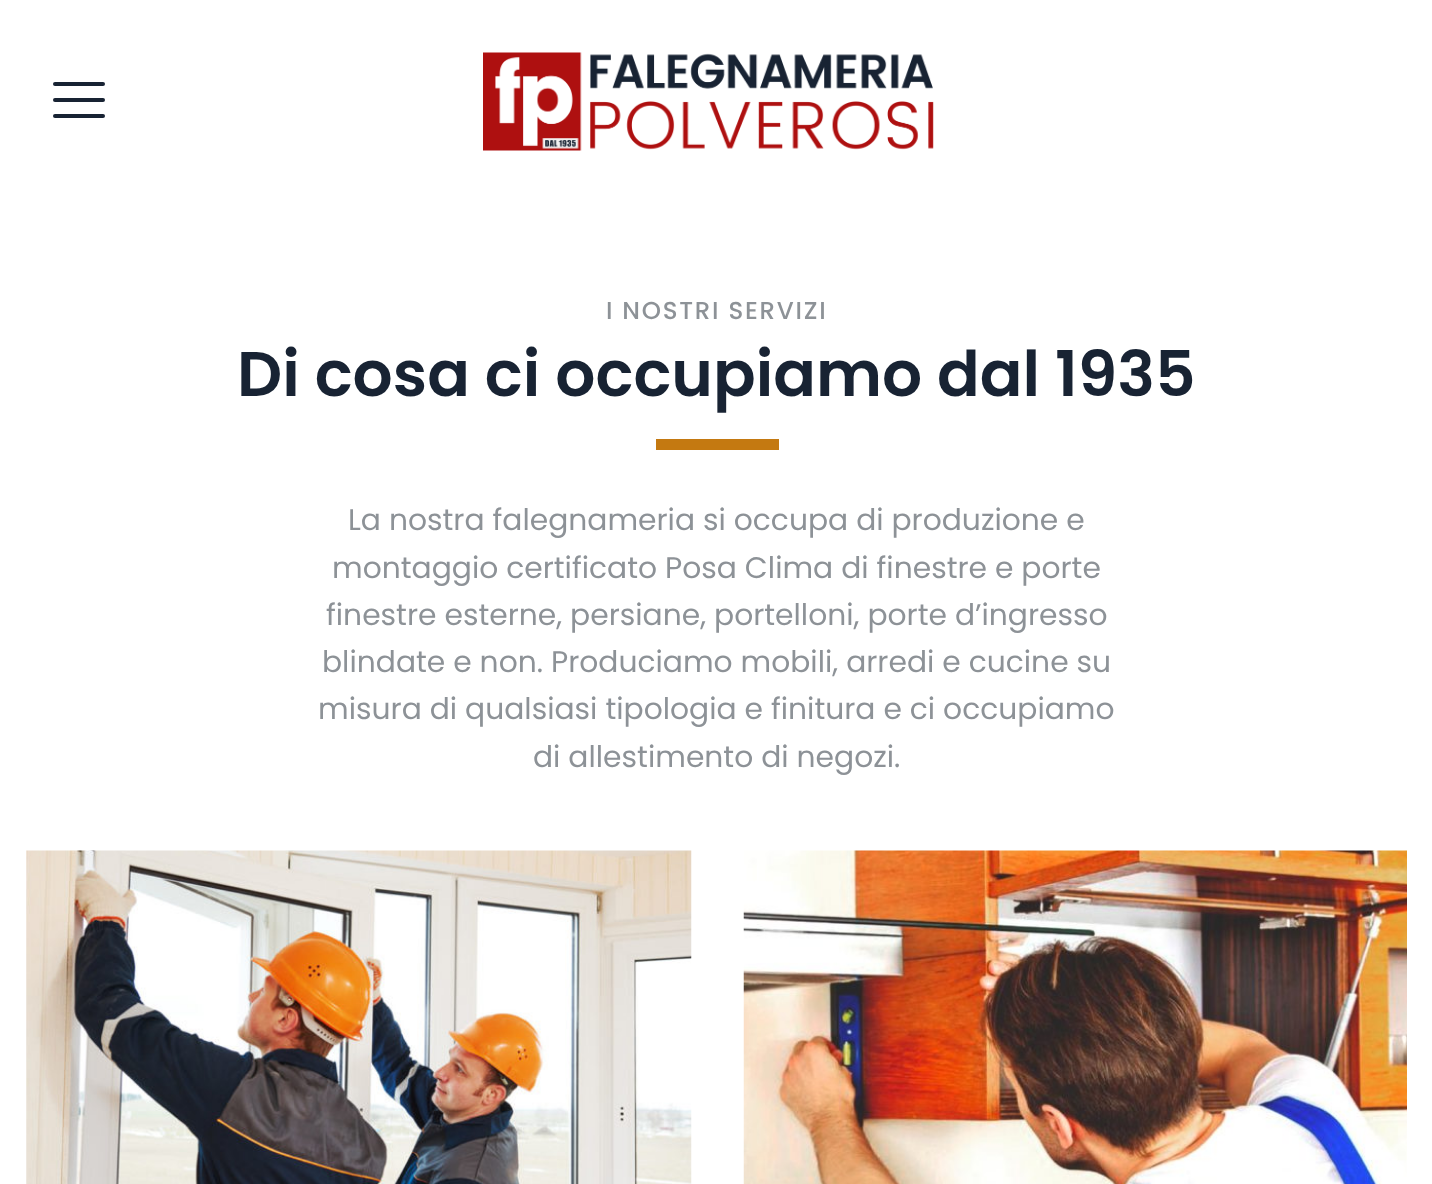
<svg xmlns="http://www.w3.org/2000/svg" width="1432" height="1184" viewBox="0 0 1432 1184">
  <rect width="100%" height="100%" fill="rgb(255,255,255)"/>
  <rect x="53" y="98" width="52" height="4" rx="2" fill="rgb(24,35,51)"/>
  <rect x="53" y="82" width="52" height="4" rx="2" fill="rgb(24,35,51)"/>
  <rect x="53" y="114" width="52" height="4" rx="2" fill="rgb(24,35,51)"/>
  <image x="483" y="52" width="451" height="99" href="pic1.png"/>
  <text x="606" y="319" font-family="Poppins" font-size="24.5" font-weight="500" letter-spacing="1.75" fill="rgb(141,146,151)">I NOSTRI SERVIZI</text>
  <text x="237" y="396" font-family="Poppins" font-size="63" font-weight="600" fill="rgb(24,35,51)">Di cosa ci occupiamo dal 1935</text>
  <rect x="656" y="439" width="123" height="11" fill="rgb(196,121,17)"/>
  <g font-family="Poppins" font-size="29.75" fill="rgb(141,146,151)">
    <text x="348" y="530">La nostra falegnameria si occupa di produzione e</text>
    <text x="332" y="578">montaggio certificato Posa Clima di finestre e porte</text>
    <text x="326" y="625">finestre esterne, persiane, portelloni, porte d’ingresso</text>
    <text x="322" y="672">blindate e non. Produciamo mobili, arredi e cucine su</text>
    <text x="318" y="719">misura di qualsiasi tipologia e finitura e ci occupiamo</text>
    <text x="533" y="767">di allestimento di negozi.</text>
  </g>
  <image x="26" y="850" width="666" height="334" href="pic2.png"/>
  <image x="743" y="850" width="664" height="334" href="pic3.png"/>
</svg>
